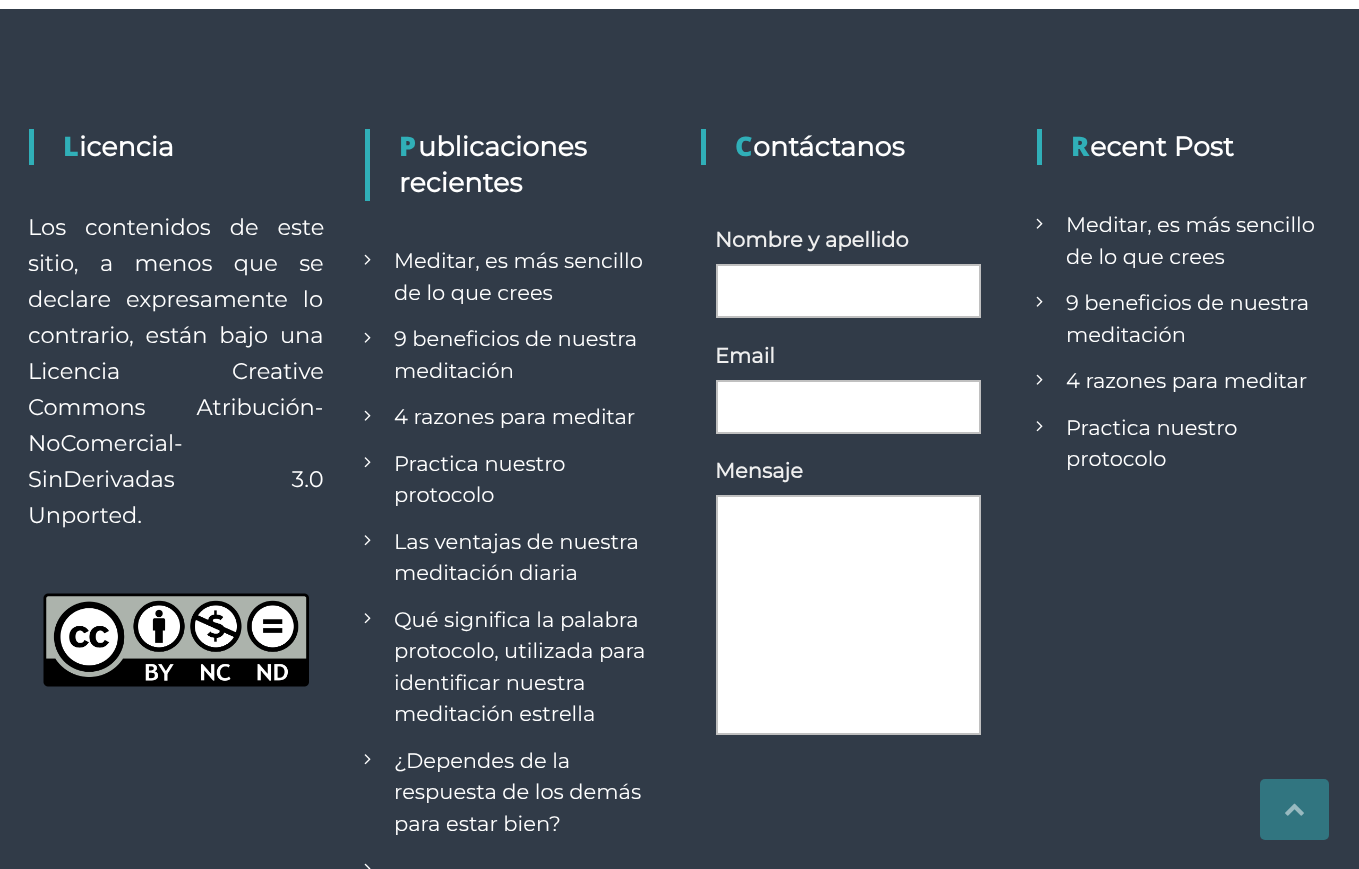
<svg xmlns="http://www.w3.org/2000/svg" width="1359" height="869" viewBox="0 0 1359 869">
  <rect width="100%" height="100%" fill="rgb(255,255,255)"/>
  <rect x="0" y="9" width="1359" height="860" fill="rgb(49,59,72)"/>
  <rect x="29" y="129" width="5" height="36" fill="rgb(48,175,184)"/>
  <text x="63" y="156" font-family="Noto Sans" font-size="27" font-weight="900" fill="rgb(48,175,184)">L</text>
  <text x="79" y="156" font-family="Montserrat" font-size="27" font-weight="bold" fill="rgb(255,255,255)">icencia</text>
  <g font-family="Montserrat" font-size="22.5" fill="rgb(255,255,255)">
    <text>
      <tspan x="28" y="235" word-spacing="13">Los contenidos de este</tspan>
      <tspan x="28" y="271" word-spacing="15.5">sitio, a menos que se</tspan>
      <tspan x="28" y="307" word-spacing="9">declare expresamente lo</tspan>
      <tspan x="28" y="343" word-spacing="6">contrario, están bajo una</tspan>
      <tspan x="28" y="379">Licencia</tspan>
    </text>
    <text x="232" y="379">Creative</text>
    <text>
      <tspan x="28" y="415" word-spacing="45">Commons Atribución-</tspan>
      <tspan x="28" y="451">NoComercial-</tspan>
      <tspan x="28" y="487" word-spacing="111">SinDerivadas 3.0</tspan>
      <tspan x="28" y="523">Unported.</tspan>
    </text>
  </g>
  <image x="43" y="593" width="266" height="94" href="pic1.png"/>
  <rect x="365" y="129" width="5" height="72" fill="rgb(48,175,184)"/>
  <text x="399" y="156" font-family="Noto Sans" font-size="27" font-weight="900" fill="rgb(48,175,184)">P</text>
  <g font-family="Montserrat" font-size="27" font-weight="bold" fill="rgb(255,255,255)">
    <text x="418" y="156">ublicaciones</text>
    <text x="399" y="192">recientes</text>
  </g>
  <image x="364" y="254" width="7" height="11" href="pic2.png"/>
  <g font-family="Montserrat" font-size="21" fill="rgb(255,255,255)">
    <text>
      <tspan x="394" y="268">Meditar, es más sencillo</tspan>
      <tspan x="394" y="300">de lo que crees</tspan>
    </text>
  </g>
  <image x="364" y="332" width="7" height="11" href="pic2.png"/>
  <g font-family="Montserrat" font-size="21" fill="rgb(255,255,255)">
    <text>
      <tspan x="394" y="346">9 beneficios de nuestra</tspan>
      <tspan x="394" y="378">meditación</tspan>
    </text>
  </g>
  <image x="364" y="410" width="7" height="11" href="pic2.png"/>
  <text x="394" y="424" font-family="Montserrat" font-size="21" fill="rgb(255,255,255)">4 razones para meditar</text>
  <image x="364" y="457" width="7" height="11" href="pic3.png"/>
  <g font-family="Montserrat" font-size="21" fill="rgb(255,255,255)">
    <text>
      <tspan x="394" y="471">Practica nuestro</tspan>
      <tspan x="394" y="502">protocolo</tspan>
    </text>
  </g>
  <image x="364" y="535" width="7" height="11" href="pic3.png"/>
  <g font-family="Montserrat" font-size="21" fill="rgb(255,255,255)">
    <text>
      <tspan x="394" y="549">Las ventajas de nuestra</tspan>
      <tspan x="394" y="580">meditación diaria</tspan>
    </text>
  </g>
  <image x="364" y="613" width="7" height="11" href="pic3.png"/>
  <g font-family="Montserrat" font-size="21" fill="rgb(255,255,255)">
    <text>
      <tspan x="394" y="627">Qué significa la palabra</tspan>
      <tspan x="394" y="658">protocolo, utilizada para</tspan>
      <tspan x="394" y="690">identificar nuestra</tspan>
      <tspan x="394" y="721">meditación estrella</tspan>
    </text>
  </g>
  <image x="364" y="754" width="7" height="11" href="pic3.png"/>
  <g font-family="Montserrat" font-size="21" fill="rgb(255,255,255)">
    <text>
      <tspan x="394" y="768">¿Dependes de la</tspan>
      <tspan x="394" y="799">respuesta de los demás</tspan>
      <tspan x="394" y="831">para estar bien?</tspan>
    </text>
  </g>
  <image x="364" y="863" width="7" height="6" href="pic4.png"/>
  <rect x="701" y="129" width="5" height="36" fill="rgb(48,175,184)"/>
  <text x="735" y="156" font-family="Noto Sans" font-size="27" font-weight="900" fill="rgb(48,175,184)">C</text>
  <text x="753" y="156" font-family="Montserrat" font-size="27" font-weight="bold" fill="rgb(255,255,255)">ontáctanos</text>
  <text x="715" y="247" font-family="Montserrat" font-size="21" font-weight="bold" fill="rgb(239,239,239)">Nombre y apellido</text>
  <rect x="717" y="265" width="263" height="52" fill="rgb(255,255,255)" stroke="rgb(192,192,192)" stroke-width="2"/>
  <text x="715" y="363" font-family="Montserrat" font-size="21" font-weight="bold" fill="rgb(239,239,239)">Email</text>
  <rect x="717" y="381" width="263" height="52" fill="rgb(255,255,255)" stroke="rgb(192,192,192)" stroke-width="2"/>
  <text x="715" y="478" font-family="Montserrat" font-size="21" font-weight="bold" fill="rgb(239,239,239)">Mensaje</text>
  <rect x="717" y="496" width="263" height="238" fill="rgb(255,255,255)" stroke="rgb(192,192,192)" stroke-width="2"/>
  <rect x="1037" y="129" width="5" height="36" fill="rgb(48,175,184)"/>
  <text x="1071" y="156" font-family="Noto Sans" font-size="27" font-weight="900" fill="rgb(48,175,184)">R</text>
  <text x="1090" y="156" font-family="Montserrat" font-size="27" font-weight="bold" fill="rgb(255,255,255)">ecent Post</text>
  <image x="1036" y="218" width="7" height="11" href="pic2.png"/>
  <g font-family="Montserrat" font-size="21" fill="rgb(255,255,255)">
    <text>
      <tspan x="1066" y="232">Meditar, es más sencillo</tspan>
      <tspan x="1066" y="264">de lo que crees</tspan>
    </text>
  </g>
  <image x="1036" y="296" width="7" height="11" href="pic2.png"/>
  <g font-family="Montserrat" font-size="21" fill="rgb(255,255,255)">
    <text>
      <tspan x="1066" y="310">9 beneficios de nuestra</tspan>
      <tspan x="1066" y="342">meditación</tspan>
    </text>
  </g>
  <image x="1036" y="374" width="7" height="11" href="pic2.png"/>
  <text x="1066" y="388" font-family="Montserrat" font-size="21" fill="rgb(255,255,255)">4 razones para meditar</text>
  <image x="1036" y="421" width="7" height="11" href="pic3.png"/>
  <g font-family="Montserrat" font-size="21" fill="rgb(255,255,255)">
    <text>
      <tspan x="1066" y="435">Practica nuestro</tspan>
      <tspan x="1066" y="466">protocolo</tspan>
    </text>
  </g>
  <rect x="1260" y="779" width="69" height="61" rx="5" fill="rgb(49,117,128)"/>
  <image x="1285" y="803" width="19" height="13" href="pic5.png"/>
</svg>
